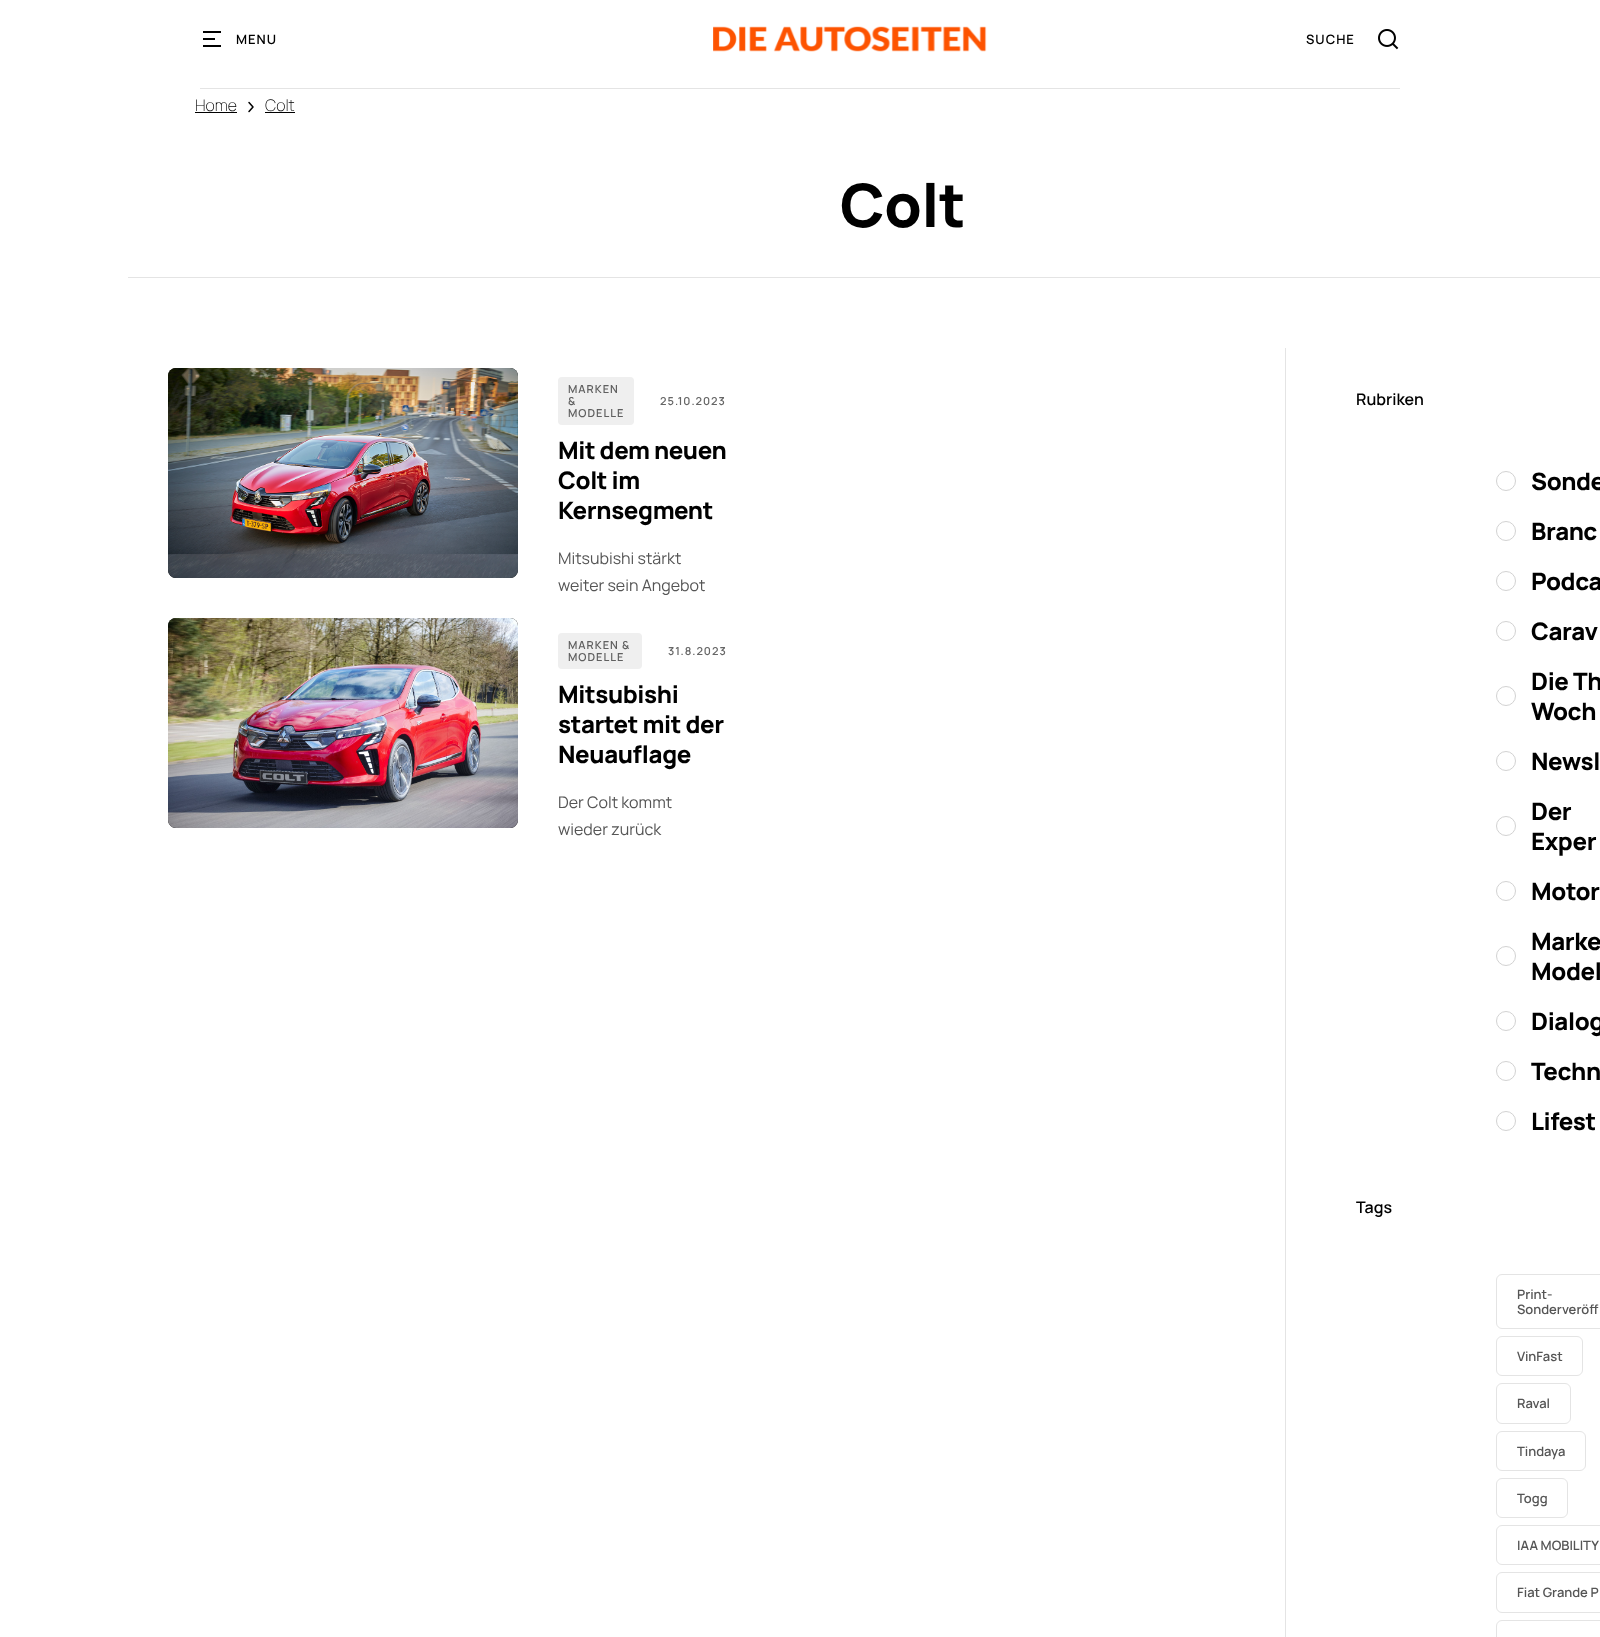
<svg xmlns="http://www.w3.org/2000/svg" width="1600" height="1637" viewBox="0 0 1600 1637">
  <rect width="100%" height="100%" fill="rgb(255,255,255)"/>
  <rect x="200" y="88" width="1200" height="1" fill="rgb(228,228,228)"/>
  <image x="203" y="31" width="18" height="16" href="pic1.png"/>
  <text x="236" y="44" font-family="Manrope" font-size="13" font-weight="600" letter-spacing="1" fill="rgb(0,0,0)">MENU</text>
  <image x="713" y="26" width="274" height="26" href="pic2.png"/>
  <text x="1306" y="44" font-family="Manrope" font-size="13" font-weight="600" letter-spacing="1" fill="rgb(0,0,0)">SUCHE</text>
  <image x="1378" y="29" width="21" height="21" href="pic3.png"/>
  <text x="195" y="111" font-family="Manrope" font-size="16" font-weight="200" fill="rgb(0,0,0)">Home</text>
  <rect x="195" y="112" width="42" height="1" fill="rgb(0,0,0)"/>
  <path d="M249 102.5L253 107L249 111.5" fill="none" stroke="rgb(0,0,0)" stroke-width="1.5" stroke-linecap="round" stroke-linejoin="round"/>
  <text x="265" y="111" font-family="Manrope" font-size="16" font-weight="200" fill="rgb(0,0,0)">Colt</text>
  <rect x="265" y="112" width="30" height="1" fill="rgb(0,0,0)"/>
  <text x="840" y="227" font-family="Manrope" font-size="60" font-weight="800" letter-spacing="-0.4" fill="rgb(0,0,0)">Colt</text>
  <rect x="128" y="277" width="1472" height="1" fill="rgb(228,228,228)"/>
  <rect x="1285" y="348" width="1" height="1289" fill="rgb(228,228,228)"/>
  <rect x="168" y="368" width="350" height="210" rx="8" fill="rgb(0,0,0)"/>
  <image x="168" y="368" width="350" height="210" href="pic4.png"/>
  <rect x="558" y="377" width="76" height="48" rx="4" fill="rgb(239,239,239)"/>
  <g font-family="Manrope" font-size="11" font-weight="600" letter-spacing="1" fill="rgb(96,96,96)">
    <text>
      <tspan x="568" y="393">MARKEN</tspan>
      <tspan x="568" y="405">&amp;</tspan>
      <tspan x="568" y="417">MODELLE</tspan>
    </text>
  </g>
  <text x="660" y="405" font-family="Manrope" font-size="11" font-weight="600" letter-spacing="1" fill="rgb(102,102,102)">25.10.2023</text>
  <g font-family="Manrope" font-size="24" font-weight="800" letter-spacing="-0.4" fill="rgb(0,0,0)">
    <text>
      <tspan x="558" y="459">Mit dem neuen</tspan>
      <tspan x="558" y="489">Colt im</tspan>
      <tspan x="558" y="519">Kernsegment</tspan>
    </text>
  </g>
  <g font-family="Manrope" font-size="16" fill="rgb(85,85,85)">
    <text>
      <tspan x="558" y="564">Mitsubishi stärkt</tspan>
      <tspan x="558" y="591">weiter sein Angebot</tspan>
    </text>
  </g>
  <rect x="168" y="618" width="350" height="210" rx="8" fill="rgb(0,0,0)"/>
  <image x="168" y="618" width="350" height="210" href="pic5.png"/>
  <rect x="558" y="633" width="84" height="36" rx="4" fill="rgb(239,239,239)"/>
  <g font-family="Manrope" font-size="11" font-weight="600" letter-spacing="1" fill="rgb(96,96,96)">
    <text>
      <tspan x="568" y="649">MARKEN &amp;</tspan>
      <tspan x="568" y="661">MODELLE</tspan>
    </text>
  </g>
  <text x="668" y="655" font-family="Manrope" font-size="11" font-weight="600" letter-spacing="1" fill="rgb(102,102,102)">31.8.2023</text>
  <g font-family="Manrope" font-size="24" font-weight="800" letter-spacing="-0.4" fill="rgb(0,0,0)">
    <text>
      <tspan x="558" y="703">Mitsubishi</tspan>
      <tspan x="558" y="733">startet mit der</tspan>
      <tspan x="558" y="763">Neuauflage</tspan>
    </text>
  </g>
  <g font-family="Manrope" font-size="16" fill="rgb(85,85,85)">
    <text>
      <tspan x="558" y="808">Der Colt kommt</tspan>
      <tspan x="558" y="835">wieder zurück</tspan>
    </text>
  </g>
  <text x="1356" y="405" font-family="Manrope" font-size="16" font-weight="600" fill="rgb(0,0,0)">Rubriken</text>
  <circle cx="1506" cy="481" r="9.5" fill="none" stroke="rgb(210,210,210)"/>
  <text x="1531" y="490" font-family="Manrope" font-size="24" font-weight="800" letter-spacing="-0.4" fill="rgb(0,0,0)">Sonde</text>
  <circle cx="1506" cy="531" r="9.5" fill="none" stroke="rgb(210,210,210)"/>
  <text x="1531" y="540" font-family="Manrope" font-size="24" font-weight="800" letter-spacing="-0.4" fill="rgb(0,0,0)">Branc</text>
  <circle cx="1506" cy="581" r="9.5" fill="none" stroke="rgb(210,210,210)"/>
  <text x="1531" y="590" font-family="Manrope" font-size="24" font-weight="800" letter-spacing="-0.4" fill="rgb(0,0,0)">Podca</text>
  <circle cx="1506" cy="631" r="9.5" fill="none" stroke="rgb(210,210,210)"/>
  <text x="1531" y="640" font-family="Manrope" font-size="24" font-weight="800" letter-spacing="-0.4" fill="rgb(0,0,0)">Carav</text>
  <circle cx="1506" cy="696" r="9.5" fill="none" stroke="rgb(210,210,210)"/>
  <g font-family="Manrope" font-size="24" font-weight="800" letter-spacing="-0.4" fill="rgb(0,0,0)">
    <text>
      <tspan x="1531" y="690">Die Th</tspan>
      <tspan x="1531" y="720">Woch</tspan>
    </text>
  </g>
  <circle cx="1506" cy="761" r="9.5" fill="none" stroke="rgb(210,210,210)"/>
  <text x="1531" y="770" font-family="Manrope" font-size="24" font-weight="800" letter-spacing="-0.4" fill="rgb(0,0,0)">Newsl</text>
  <circle cx="1506" cy="826" r="9.5" fill="none" stroke="rgb(210,210,210)"/>
  <g font-family="Manrope" font-size="24" font-weight="800" letter-spacing="-0.4" fill="rgb(0,0,0)">
    <text>
      <tspan x="1531" y="820">Der</tspan>
      <tspan x="1531" y="850">Exper</tspan>
    </text>
  </g>
  <circle cx="1506" cy="891" r="9.5" fill="none" stroke="rgb(210,210,210)"/>
  <text x="1531" y="900" font-family="Manrope" font-size="24" font-weight="800" letter-spacing="-0.4" fill="rgb(0,0,0)">Motor</text>
  <circle cx="1506" cy="956" r="9.5" fill="none" stroke="rgb(210,210,210)"/>
  <g font-family="Manrope" font-size="24" font-weight="800" letter-spacing="-0.4" fill="rgb(0,0,0)">
    <text>
      <tspan x="1531" y="950">Marke</tspan>
      <tspan x="1531" y="980">Model</tspan>
    </text>
  </g>
  <circle cx="1506" cy="1021" r="9.5" fill="none" stroke="rgb(210,210,210)"/>
  <text x="1531" y="1030" font-family="Manrope" font-size="24" font-weight="800" letter-spacing="-0.4" fill="rgb(0,0,0)">Dialog</text>
  <circle cx="1506" cy="1071" r="9.5" fill="none" stroke="rgb(210,210,210)"/>
  <text x="1531" y="1080" font-family="Manrope" font-size="24" font-weight="800" letter-spacing="-0.4" fill="rgb(0,0,0)">Techn</text>
  <circle cx="1506" cy="1121" r="9.5" fill="none" stroke="rgb(210,210,210)"/>
  <text x="1531" y="1130" font-family="Manrope" font-size="24" font-weight="800" letter-spacing="-0.4" fill="rgb(0,0,0)">Lifest</text>
  <text x="1356" y="1213" font-family="Manrope" font-size="16" font-weight="600" fill="rgb(0,0,0)">Tags</text>
  <rect x="1496.5" y="1274.5" width="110" height="54" rx="5.5" fill="none" stroke="rgb(228,228,228)"/>
  <g font-family="Manrope" font-size="13" font-weight="600" fill="rgb(85,85,85)">
    <text>
      <tspan x="1517" y="1299">Print-</tspan>
      <tspan x="1517" y="1314">Sonderveröff</tspan>
    </text>
  </g>
  <rect x="1496.5" y="1336.5" width="86" height="39" rx="5.5" fill="none" stroke="rgb(228,228,228)"/>
  <text x="1517" y="1361" font-family="Manrope" font-size="13" font-weight="600" fill="rgb(85,85,85)">VinFast</text>
  <rect x="1496.5" y="1383.5" width="74" height="40" rx="5.5" fill="none" stroke="rgb(228,228,228)"/>
  <text x="1517" y="1408" font-family="Manrope" font-size="13" font-weight="600" fill="rgb(85,85,85)">Raval</text>
  <rect x="1496.5" y="1431.5" width="89" height="39" rx="5.5" fill="none" stroke="rgb(228,228,228)"/>
  <text x="1517" y="1456" font-family="Manrope" font-size="13" font-weight="600" fill="rgb(85,85,85)">Tindaya</text>
  <rect x="1496.5" y="1478.5" width="71" height="39" rx="5.5" fill="none" stroke="rgb(228,228,228)"/>
  <text x="1517" y="1503" font-family="Manrope" font-size="13" font-weight="600" fill="rgb(85,85,85)">Togg</text>
  <rect x="1496.5" y="1525.5" width="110" height="39" rx="5.5" fill="none" stroke="rgb(228,228,228)"/>
  <text x="1517" y="1550" font-family="Manrope" font-size="13" font-weight="600" fill="rgb(85,85,85)">IAA MOBILITY</text>
  <rect x="1496.5" y="1572.5" width="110" height="40" rx="5.5" fill="none" stroke="rgb(228,228,228)"/>
  <text x="1517" y="1597" font-family="Manrope" font-size="13" font-weight="600" fill="rgb(85,85,85)">Fiat Grande P</text>
  <rect x="1496.5" y="1620.5" width="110" height="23" rx="5.5" fill="none" stroke="rgb(228,228,228)"/>
</svg>
